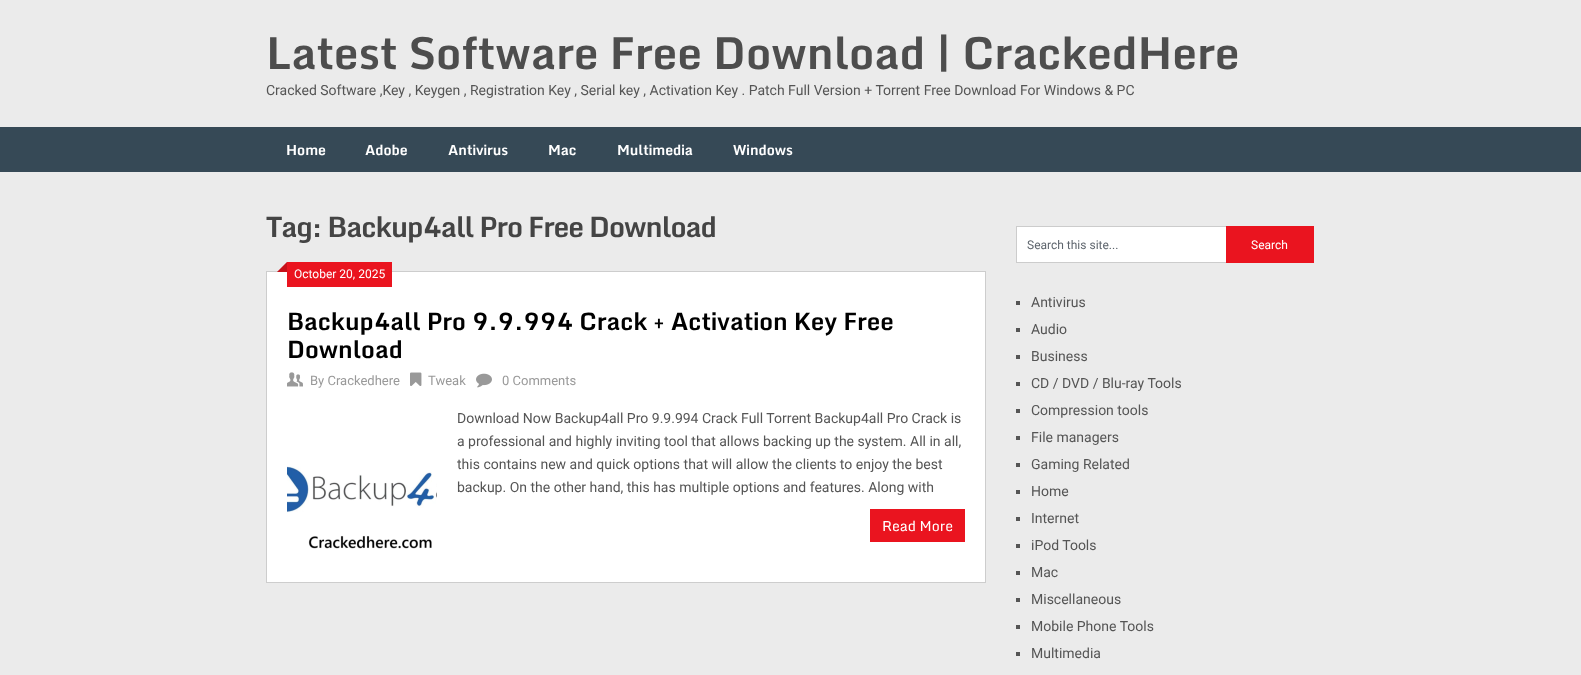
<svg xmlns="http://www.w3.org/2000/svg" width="1581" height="675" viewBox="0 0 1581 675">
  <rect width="100%" height="100%" fill="rgb(235,235,235)"/>
  <text x="266" y="69" font-family="Monda" font-size="44" font-weight="bold" fill="rgb(77,77,77)">Latest Software Free Download | CrackedHere</text>
  <text x="266" y="95" font-family="Roboto" font-size="14" fill="rgb(85,85,85)">Cracked Software ,Key , Keygen , Registration Key , Serial key , Activation Key . Patch Full Version + Torrent Free Download For Windows &amp; PC</text>
  <rect x="0" y="127" width="1581" height="45" fill="rgb(54,73,86)"/>
  <g font-family="Monda" font-size="14" font-weight="bold" fill="rgb(255,255,255)">
    <text x="286" y="155">Home</text>
    <text x="365" y="155">Adobe</text>
    <text x="448" y="155">Antivirus</text>
    <text x="548" y="155">Mac</text>
    <text x="617" y="155">Multimedia</text>
    <text x="733" y="155">Windows</text>
  </g>
  <text x="266" y="237" font-family="Monda" font-size="28" font-weight="bold" letter-spacing="-1" fill="rgb(68,68,68)">Tag: Backup4all Pro Free Download</text>
  <rect x="266.5" y="271.5" width="719" height="311" fill="rgb(255,255,255)" stroke="rgb(205,205,205)"/>
  <rect x="287" y="262" width="105" height="25" fill="rgb(234,20,31)"/>
  <path d="M287 272H277L287 262Z" fill="rgb(234,20,31)"/>
  <path d="M287 272H277L287 262Z" fill="rgba(0,0,0,0.15)"/>
  <text x="294" y="278" font-family="Roboto" font-size="12" fill="rgb(255,255,255)">October 20, 2025</text>
  <g font-family="Monda" font-size="24" font-weight="bold" fill="rgb(0,0,0)">
    <text>
      <tspan x="287" y="330">Backup4all Pro 9.9.994 Crack + Activation Key Free</tspan>
      <tspan x="287" y="358">Download</tspan>
    </text>
  </g>
  <image x="287" y="372" width="16" height="15" href="pic1.png"/>
  <text x="310" y="385" font-family="Roboto" font-size="13" fill="rgb(153,153,153)">By Crackedhere</text>
  <image x="410" y="372" width="12" height="14" href="pic2.png"/>
  <text x="428" y="385" font-family="Roboto" font-size="13" fill="rgb(153,153,153)">Tweak</text>
  <image x="476" y="373" width="16" height="15" href="pic3.png"/>
  <text x="502" y="385" font-family="Roboto" font-size="13" fill="rgb(153,153,153)">0 Comments</text>
  <g font-family="Roboto" font-size="14" fill="rgb(85,85,85)">
    <text>
      <tspan x="457" y="423">Download Now Backup4all Pro 9.9.994 Crack Full Torrent Backup4all Pro Crack is</tspan>
      <tspan x="457" y="446">a professional and highly inviting tool that allows backing up the system. All in all,</tspan>
      <tspan x="457" y="469">this contains new and quick options that will allow the clients to enjoy the best</tspan>
      <tspan x="457" y="492">backup. On the other hand, this has multiple options and features. Along with</tspan>
    </text>
  </g>
  <image x="287" y="466" width="150" height="83" href="pic4.png"/>
  <rect x="870" y="509" width="95" height="33" fill="rgb(234,20,31)"/>
  <text x="882" y="531" font-family="Monda" font-size="14" fill="rgb(255,255,255)">Read More</text>
  <rect x="1017" y="227" width="209" height="35" fill="rgb(255,255,255)"/>
  <rect x="1016" y="226" width="210" height="1" fill="rgb(204,204,204)"/>
  <rect x="1016" y="262" width="210" height="1" fill="rgb(204,204,204)"/>
  <rect x="1016" y="226" width="1" height="37" fill="rgb(204,204,204)"/>
  <text x="1027" y="249" font-family="Roboto" font-size="12" fill="rgb(94,101,109)">Search this site...</text>
  <rect x="1226" y="226" width="88" height="37" fill="rgb(234,20,31)"/>
  <text x="1251" y="249" font-family="Roboto" font-size="12" fill="rgb(255,255,255)">Search</text>
  <rect x="1016" y="301" width="4" height="4" fill="rgb(85,85,85)"/>
  <text x="1031" y="307" font-family="Roboto" font-size="14" fill="rgb(85,85,85)">Antivirus</text>
  <rect x="1016" y="328" width="4" height="4" fill="rgb(85,85,85)"/>
  <text x="1031" y="334" font-family="Roboto" font-size="14" fill="rgb(85,85,85)">Audio</text>
  <rect x="1016" y="355" width="4" height="4" fill="rgb(85,85,85)"/>
  <text x="1031" y="361" font-family="Roboto" font-size="14" fill="rgb(85,85,85)">Business</text>
  <rect x="1016" y="382" width="4" height="4" fill="rgb(85,85,85)"/>
  <text x="1031" y="388" font-family="Roboto" font-size="14" fill="rgb(85,85,85)">CD / DVD / Blu-ray Tools</text>
  <rect x="1016" y="409" width="4" height="4" fill="rgb(85,85,85)"/>
  <text x="1031" y="415" font-family="Roboto" font-size="14" fill="rgb(85,85,85)">Compression tools</text>
  <rect x="1016" y="436" width="4" height="4" fill="rgb(85,85,85)"/>
  <text x="1031" y="442" font-family="Roboto" font-size="14" fill="rgb(85,85,85)">File managers</text>
  <rect x="1016" y="463" width="4" height="4" fill="rgb(85,85,85)"/>
  <text x="1031" y="469" font-family="Roboto" font-size="14" fill="rgb(85,85,85)">Gaming Related</text>
  <rect x="1016" y="490" width="4" height="4" fill="rgb(85,85,85)"/>
  <text x="1031" y="496" font-family="Roboto" font-size="14" fill="rgb(85,85,85)">Home</text>
  <rect x="1016" y="517" width="4" height="4" fill="rgb(85,85,85)"/>
  <text x="1031" y="523" font-family="Roboto" font-size="14" fill="rgb(85,85,85)">Internet</text>
  <rect x="1016" y="544" width="4" height="4" fill="rgb(85,85,85)"/>
  <text x="1031" y="550" font-family="Roboto" font-size="14" fill="rgb(85,85,85)">iPod Tools</text>
  <rect x="1016" y="571" width="4" height="4" fill="rgb(85,85,85)"/>
  <text x="1031" y="577" font-family="Roboto" font-size="14" fill="rgb(85,85,85)">Mac</text>
  <rect x="1016" y="598" width="4" height="4" fill="rgb(85,85,85)"/>
  <text x="1031" y="604" font-family="Roboto" font-size="14" fill="rgb(85,85,85)">Miscellaneous</text>
  <rect x="1016" y="625" width="4" height="4" fill="rgb(85,85,85)"/>
  <text x="1031" y="631" font-family="Roboto" font-size="14" fill="rgb(85,85,85)">Mobile Phone Tools</text>
  <rect x="1016" y="652" width="4" height="4" fill="rgb(85,85,85)"/>
  <text x="1031" y="658" font-family="Roboto" font-size="14" fill="rgb(85,85,85)">Multimedia</text>
</svg>
